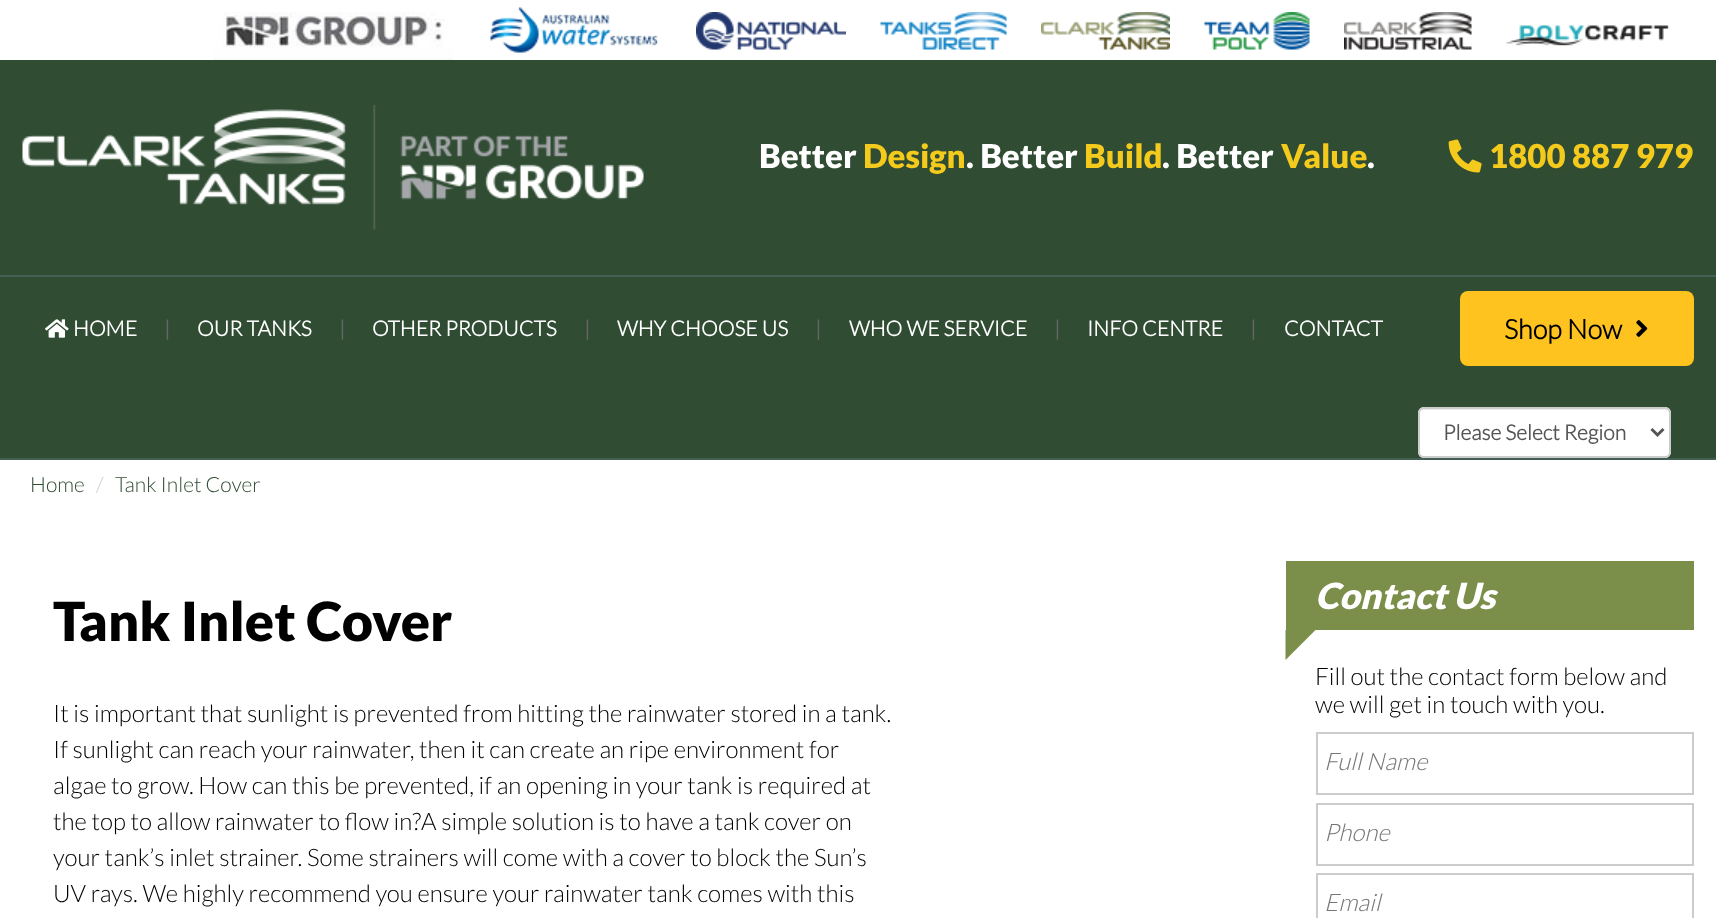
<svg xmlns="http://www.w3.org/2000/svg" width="1716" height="918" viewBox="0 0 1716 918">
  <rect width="100%" height="100%" fill="rgb(255,255,255)"/>
  <image x="213" y="12" width="240" height="48" href="pic1.png"/>
  <image x="490" y="7" width="168" height="46" href="pic2.png"/>
  <image x="696" y="12" width="150" height="38" href="pic3.png"/>
  <image x="880" y="12" width="127" height="38" href="pic4.png"/>
  <image x="1041" y="12" width="129" height="38" href="pic5.png"/>
  <image x="1204" y="12" width="106" height="38" href="pic6.png"/>
  <image x="1344" y="12" width="128" height="38" href="pic7.png"/>
  <image x="1506" y="25" width="163" height="21" href="pic8.png"/>
  <rect x="0" y="60" width="1716" height="215" fill="rgb(48,76,51)"/>
  <image x="22" y="105" width="622" height="125" href="pic9.png"/>
  <text x="759" y="168" font-family="Lato" font-size="33" font-weight="900" fill="rgb(255,255,255)">Better</text>
  <text x="863" y="168" font-family="Lato" font-size="33" font-weight="900" fill="rgb(244,202,28)">Design</text>
  <text x="966" y="168" font-family="Lato" font-size="33" font-weight="900" fill="rgb(255,255,255)">. Better</text>
  <text x="1084" y="168" font-family="Lato" font-size="33" font-weight="900" fill="rgb(244,202,28)">Build</text>
  <text x="1162" y="168" font-family="Lato" font-size="33" font-weight="900" fill="rgb(255,255,255)">. Better</text>
  <text x="1281" y="168" font-family="Lato" font-size="33" font-weight="900" fill="rgb(244,202,28)">Value</text>
  <text x="1367" y="168" font-family="Lato" font-size="33" font-weight="900" fill="rgb(255,255,255)">.</text>
  <image x="1448" y="139" width="34" height="34" href="pic10.png"/>
  <text x="1489" y="168" font-family="Lato" font-size="33" font-weight="900" fill="rgb(244,202,28)">1800 887 979</text>
  <rect x="0" y="277" width="1716" height="181" fill="rgb(48,76,51)"/>
  <rect x="0" y="275" width="1716" height="2" fill="rgb(68,96,84)"/>
  <rect x="0" y="458" width="1716" height="2" fill="rgb(68,96,84)"/>
  <image x="45" y="319" width="24" height="19" href="pic11.png"/>
  <text x="73" y="336" font-family="Lato" font-size="21" font-weight="bold" fill="rgb(255,255,255)">HOME</text>
  <text x="164" y="336" font-family="Lato" font-size="21" font-weight="bold" fill="rgb(102,102,102)">|</text>
  <text x="197" y="336" font-family="Lato" font-size="21" font-weight="bold" fill="rgb(255,255,255)">OUR TANKS</text>
  <text x="339" y="336" font-family="Lato" font-size="21" font-weight="bold" fill="rgb(102,102,102)">|</text>
  <text x="372" y="336" font-family="Lato" font-size="21" font-weight="bold" fill="rgb(255,255,255)">OTHER PRODUCTS</text>
  <text x="584" y="336" font-family="Lato" font-size="21" font-weight="bold" fill="rgb(102,102,102)">|</text>
  <text x="617" y="336" font-family="Lato" font-size="21" font-weight="bold" fill="rgb(255,255,255)">WHY CHOOSE US</text>
  <text x="815" y="336" font-family="Lato" font-size="21" font-weight="bold" fill="rgb(102,102,102)">|</text>
  <text x="849" y="336" font-family="Lato" font-size="21" font-weight="bold" fill="rgb(255,255,255)">WHO WE SERVICE</text>
  <text x="1054" y="336" font-family="Lato" font-size="21" font-weight="bold" fill="rgb(102,102,102)">|</text>
  <text x="1087" y="336" font-family="Lato" font-size="21" font-weight="bold" fill="rgb(255,255,255)">INFO CENTRE</text>
  <text x="1250" y="336" font-family="Lato" font-size="21" font-weight="bold" fill="rgb(102,102,102)">|</text>
  <text x="1284" y="336" font-family="Lato" font-size="21" font-weight="bold" fill="rgb(255,255,255)">CONTACT</text>
  <rect x="1460" y="291" width="234" height="75" rx="8" fill="rgb(255,195,32)"/>
  <text x="1504" y="339" font-family="Lato" font-size="27" font-weight="bold" fill="rgb(0,0,0)">Shop Now</text>
  <image x="1636" y="320" width="12" height="17" href="pic12.png"/>
  <rect x="1418" y="407" width="253" height="51" rx="6" fill="rgb(255,255,255)"/>
  <path d="M1424 410H1665C1667 410 1670 412 1670 414V413C1670 410 1668 408 1665 408H1424C1421 408 1419 410 1419 413V414C1419 412 1421 410 1424 410Z" fill="rgb(236,236,236)"/>
  <rect x="1419" y="408" width="251" height="49" rx="5" fill="none" stroke="rgb(204,204,204)" stroke-width="2"/>
  <path d="M1651.5 429L1657.5 435L1663.5 429" fill="none" stroke="rgb(85,85,85)" stroke-width="3"/>
  <text x="1443" y="440" font-family="Lato" font-size="21" font-weight="bold" fill="rgb(85,85,85)">Please Select Region</text>
  <text x="30" y="492" font-family="Lato" font-size="21" font-weight="300" fill="rgb(48,76,51)">Home</text>
  <text x="96" y="492" font-family="Lato" font-size="21" font-weight="300" fill="rgb(204,204,204)">/</text>
  <text x="115" y="492" font-family="Lato" font-size="21" font-weight="300" fill="rgb(48,76,51)">Tank Inlet Cover</text>
  <text x="53" y="641" font-family="Lato" font-size="54" font-weight="900" fill="rgb(0,0,0)">Tank Inlet Cover</text>
  <g font-family="Lato" font-size="24" font-weight="300" fill="rgb(0,0,0)">
    <text>
      <tspan x="53" y="722">It is important that sunlight is prevented from hitting the rainwater stored in a tank.</tspan>
      <tspan x="53" y="758">If sunlight can reach your rainwater, then it can create an ripe environment for</tspan>
      <tspan x="53" y="794">algae to grow. How can this be prevented, if an opening in your tank is required at</tspan>
      <tspan x="53" y="830">the top to allow rainwater to flow in?A simple solution is to have a tank cover on</tspan>
      <tspan x="53" y="866">your tank’s inlet strainer. Some strainers will come with a cover to block the Sun’s</tspan>
      <tspan x="53" y="902">UV rays. We highly recommend you ensure your rainwater tank comes with this</tspan>
    </text>
  </g>
  <rect x="1286" y="561" width="408" height="69" fill="rgb(123,143,74)"/>
  <text x="1315" y="609" font-family="Lato" font-size="36" font-weight="900" font-style="italic" fill="rgb(255,255,255)">Contact Us</text>
  <path d="M1285.5 630H1315.5L1285.5 660Z" fill="rgb(123,143,74)"/>
  <g font-family="Lato" font-size="24" font-weight="300" fill="rgb(0,0,0)">
    <text>
      <tspan x="1315" y="685">Fill out the contact form below and</tspan>
      <tspan x="1315" y="713">we will get in touch with you.</tspan>
    </text>
  </g>
  <rect x="1317" y="733" width="376" height="61" fill="none" stroke="rgb(204,204,204)" stroke-width="2"/>
  <text x="1324" y="770" font-family="Lato" font-size="24" font-weight="300" font-style="italic" fill="rgb(117,117,117)">Full Name</text>
  <rect x="1317" y="804" width="376" height="61" fill="none" stroke="rgb(204,204,204)" stroke-width="2"/>
  <text x="1324" y="841" font-family="Lato" font-size="24" font-weight="300" font-style="italic" fill="rgb(117,117,117)">Phone</text>
  <rect x="1317" y="874" width="376" height="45" fill="none" stroke="rgb(204,204,204)" stroke-width="2"/>
  <text x="1324" y="911" font-family="Lato" font-size="24" font-weight="300" font-style="italic" fill="rgb(117,117,117)">Email</text>
</svg>
